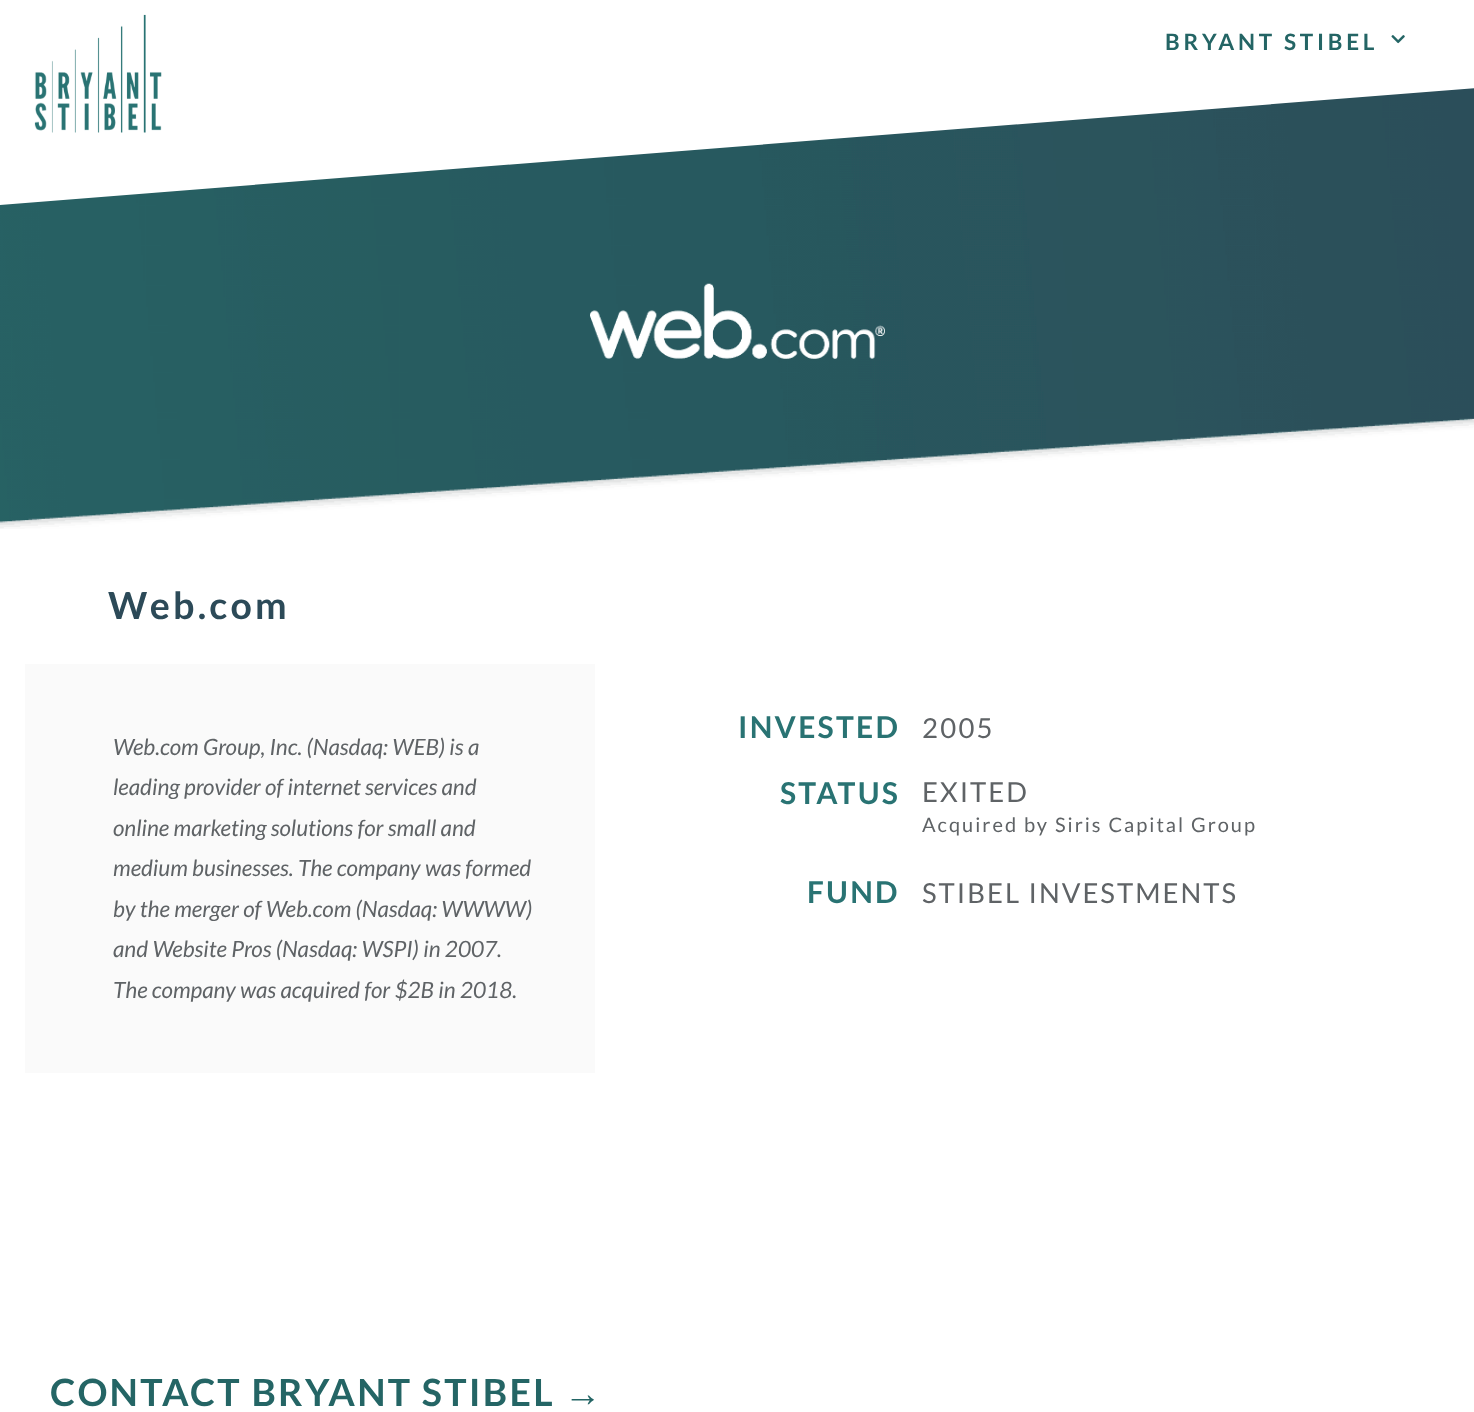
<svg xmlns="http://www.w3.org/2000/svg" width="1474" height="1412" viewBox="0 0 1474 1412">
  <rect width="100%" height="100%" fill="rgb(255,255,255)"/>
  <image x="0" y="88" width="1474" height="441" href="pic3.png"/>
  <path d="M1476 88V80H-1V205Z" fill="rgb(255,255,255)"/>
  <image x="34" y="14" width="128" height="119" href="pic1.png"/>
  <text x="1165" y="50" font-family="Lato" font-size="22.5" font-weight="bold" letter-spacing="3.75" fill="rgb(36,101,101)">BRYANT STIBEL</text>
  <image x="1391" y="35" width="14" height="9" href="pic2.png"/>
  <image x="590" y="283" width="295" height="76" href="pic4.png"/>
  <text x="108" y="619" font-family="Lato" font-size="37.5" font-weight="bold" letter-spacing="3.25" fill="rgb(44,74,88)">Web.com</text>
  <rect x="25" y="664" width="570" height="409" fill="rgb(250,250,250)"/>
  <g font-family="Lato" font-size="22.5" font-style="italic" fill="rgb(95,99,102)">
    <text>
      <tspan x="113" y="755">Web.com Group, Inc. (Nasdaq: WEB) is a</tspan>
      <tspan x="113" y="795">leading provider of internet services and</tspan>
      <tspan x="113" y="836">online marketing solutions for small and</tspan>
      <tspan x="113" y="876">medium businesses. The company was formed</tspan>
      <tspan x="113" y="917">by the merger of Web.com (Nasdaq: WWWW)</tspan>
      <tspan x="113" y="957">and Website Pros (Nasdaq: WSPI) in 2007.</tspan>
      <tspan x="113" y="998">The company was acquired for $2B in 2018.</tspan>
    </text>
  </g>
  <g font-family="Lato" font-size="30" font-weight="bold" letter-spacing="2.25" fill="rgb(41,115,115)">
    <text x="738" y="738">INVESTED</text>
    <text x="780" y="804">STATUS</text>
    <text x="807" y="903">FUND</text>
  </g>
  <text x="922" y="738" font-family="Lato" font-size="27.5" letter-spacing="2.25" fill="rgb(95,99,102)">2005</text>
  <text x="922" y="802" font-family="Lato" font-size="27.5" letter-spacing="2" fill="rgb(95,99,102)">EXITED</text>
  <text x="922" y="832" font-family="Lato" font-size="20" letter-spacing="2" fill="rgb(95,99,102)">Acquired by Siris Capital Group</text>
  <text x="922" y="903" font-family="Lato" font-size="27.5" letter-spacing="2" fill="rgb(95,99,102)">STIBEL INVESTMENTS</text>
  <text x="50" y="1406" font-family="Lato" font-size="37.5" font-weight="bold" letter-spacing="2.25" fill="rgb(36,101,101)">CONTACT BRYANT STIBEL</text>
  <text x="564" y="1406" font-family="Liberation Sans" font-size="37.5" font-weight="bold" letter-spacing="2.25" fill="rgb(36,101,101)">→</text>
</svg>
